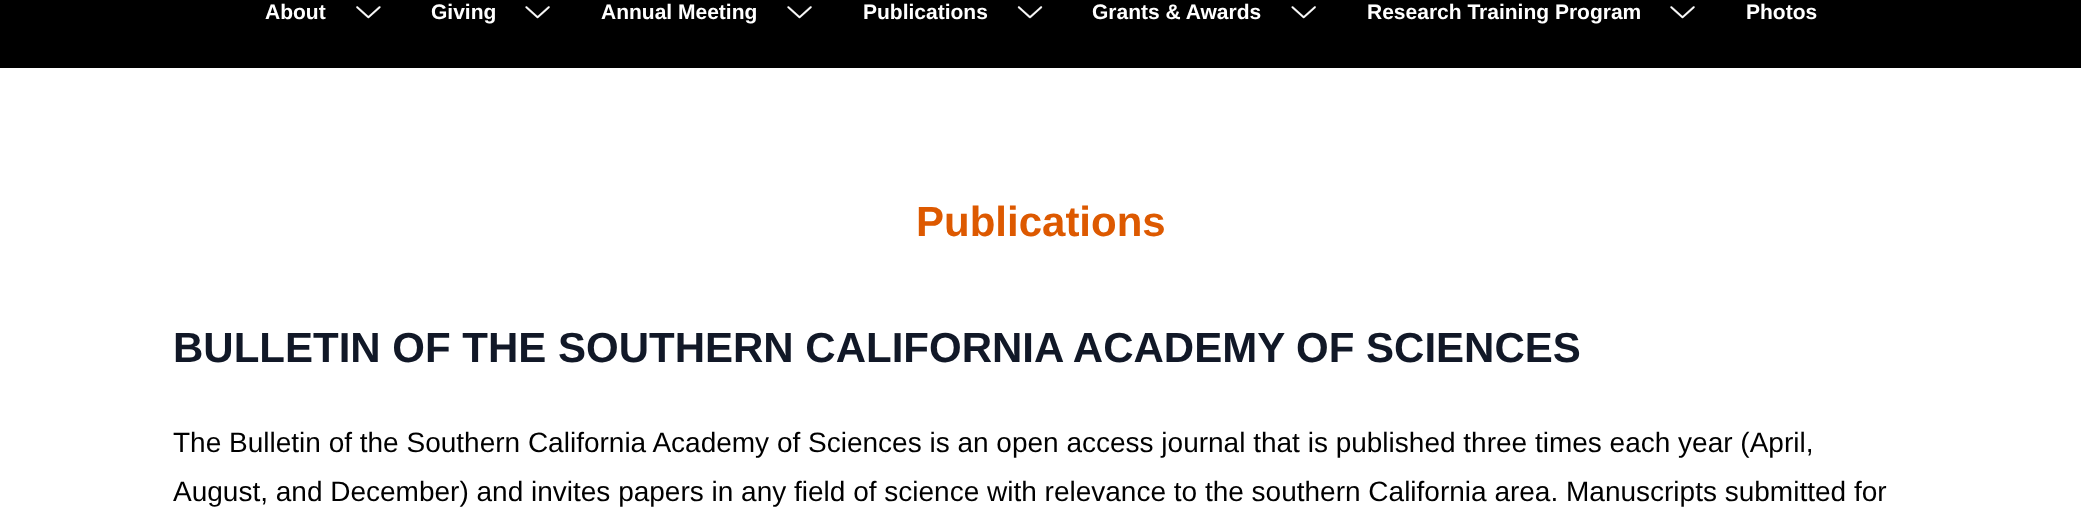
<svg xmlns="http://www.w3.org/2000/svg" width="2081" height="507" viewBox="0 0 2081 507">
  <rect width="100%" height="100%" fill="rgb(255,255,255)"/>
  <rect x="0" y="0" width="2081" height="68" fill="rgb(0,0,0)"/>
  <text x="265" y="19" font-family="Liberation Sans" font-size="21" font-weight="bold" fill="rgb(255,255,255)">About</text>
  <image x="356" y="6" width="25" height="13" href="pic1.png"/>
  <text x="431" y="19" font-family="Liberation Sans" font-size="21" font-weight="bold" fill="rgb(255,255,255)">Giving</text>
  <image x="525" y="6" width="25" height="13" href="pic2.png"/>
  <text x="601" y="19" font-family="Liberation Sans" font-size="21" font-weight="bold" fill="rgb(255,255,255)">Annual Meeting</text>
  <image x="787" y="6" width="25" height="13" href="pic3.png"/>
  <text x="863" y="19" font-family="Liberation Sans" font-size="21" font-weight="bold" fill="rgb(255,255,255)">Publications</text>
  <image x="1017" y="6" width="26" height="13" href="pic4.png"/>
  <text x="1092" y="19" font-family="Liberation Sans" font-size="21" font-weight="bold" fill="rgb(255,255,255)">Grants &amp; Awards</text>
  <image x="1291" y="6" width="25" height="13" href="pic5.png"/>
  <text x="1367" y="19" font-family="Liberation Sans" font-size="21" font-weight="bold" fill="rgb(255,255,255)">Research Training Program</text>
  <image x="1670" y="6" width="25" height="13" href="pic6.png"/>
  <text x="1746" y="19" font-family="Liberation Sans" font-size="21" font-weight="bold" fill="rgb(255,255,255)">Photos</text>
  <text x="916" y="236" font-family="Liberation Sans" font-size="42" font-weight="bold" fill="rgb(221,89,0)">Publications</text>
  <text x="173" y="362" font-family="Liberation Sans" font-size="42" font-weight="bold" fill="rgb(17,24,39)">BULLETIN OF THE SOUTHERN CALIFORNIA ACADEMY OF SCIENCES</text>
  <g font-family="Liberation Sans" font-size="28" fill="rgb(0,0,0)">
    <text>
      <tspan x="173" y="452">The Bulletin of the Southern California Academy of Sciences is an open access journal that is published three times each year (April,</tspan>
      <tspan x="173" y="501">August, and December) and invites papers in any field of science with relevance to the southern California area. Manuscripts submitted for</tspan>
    </text>
  </g>
</svg>
